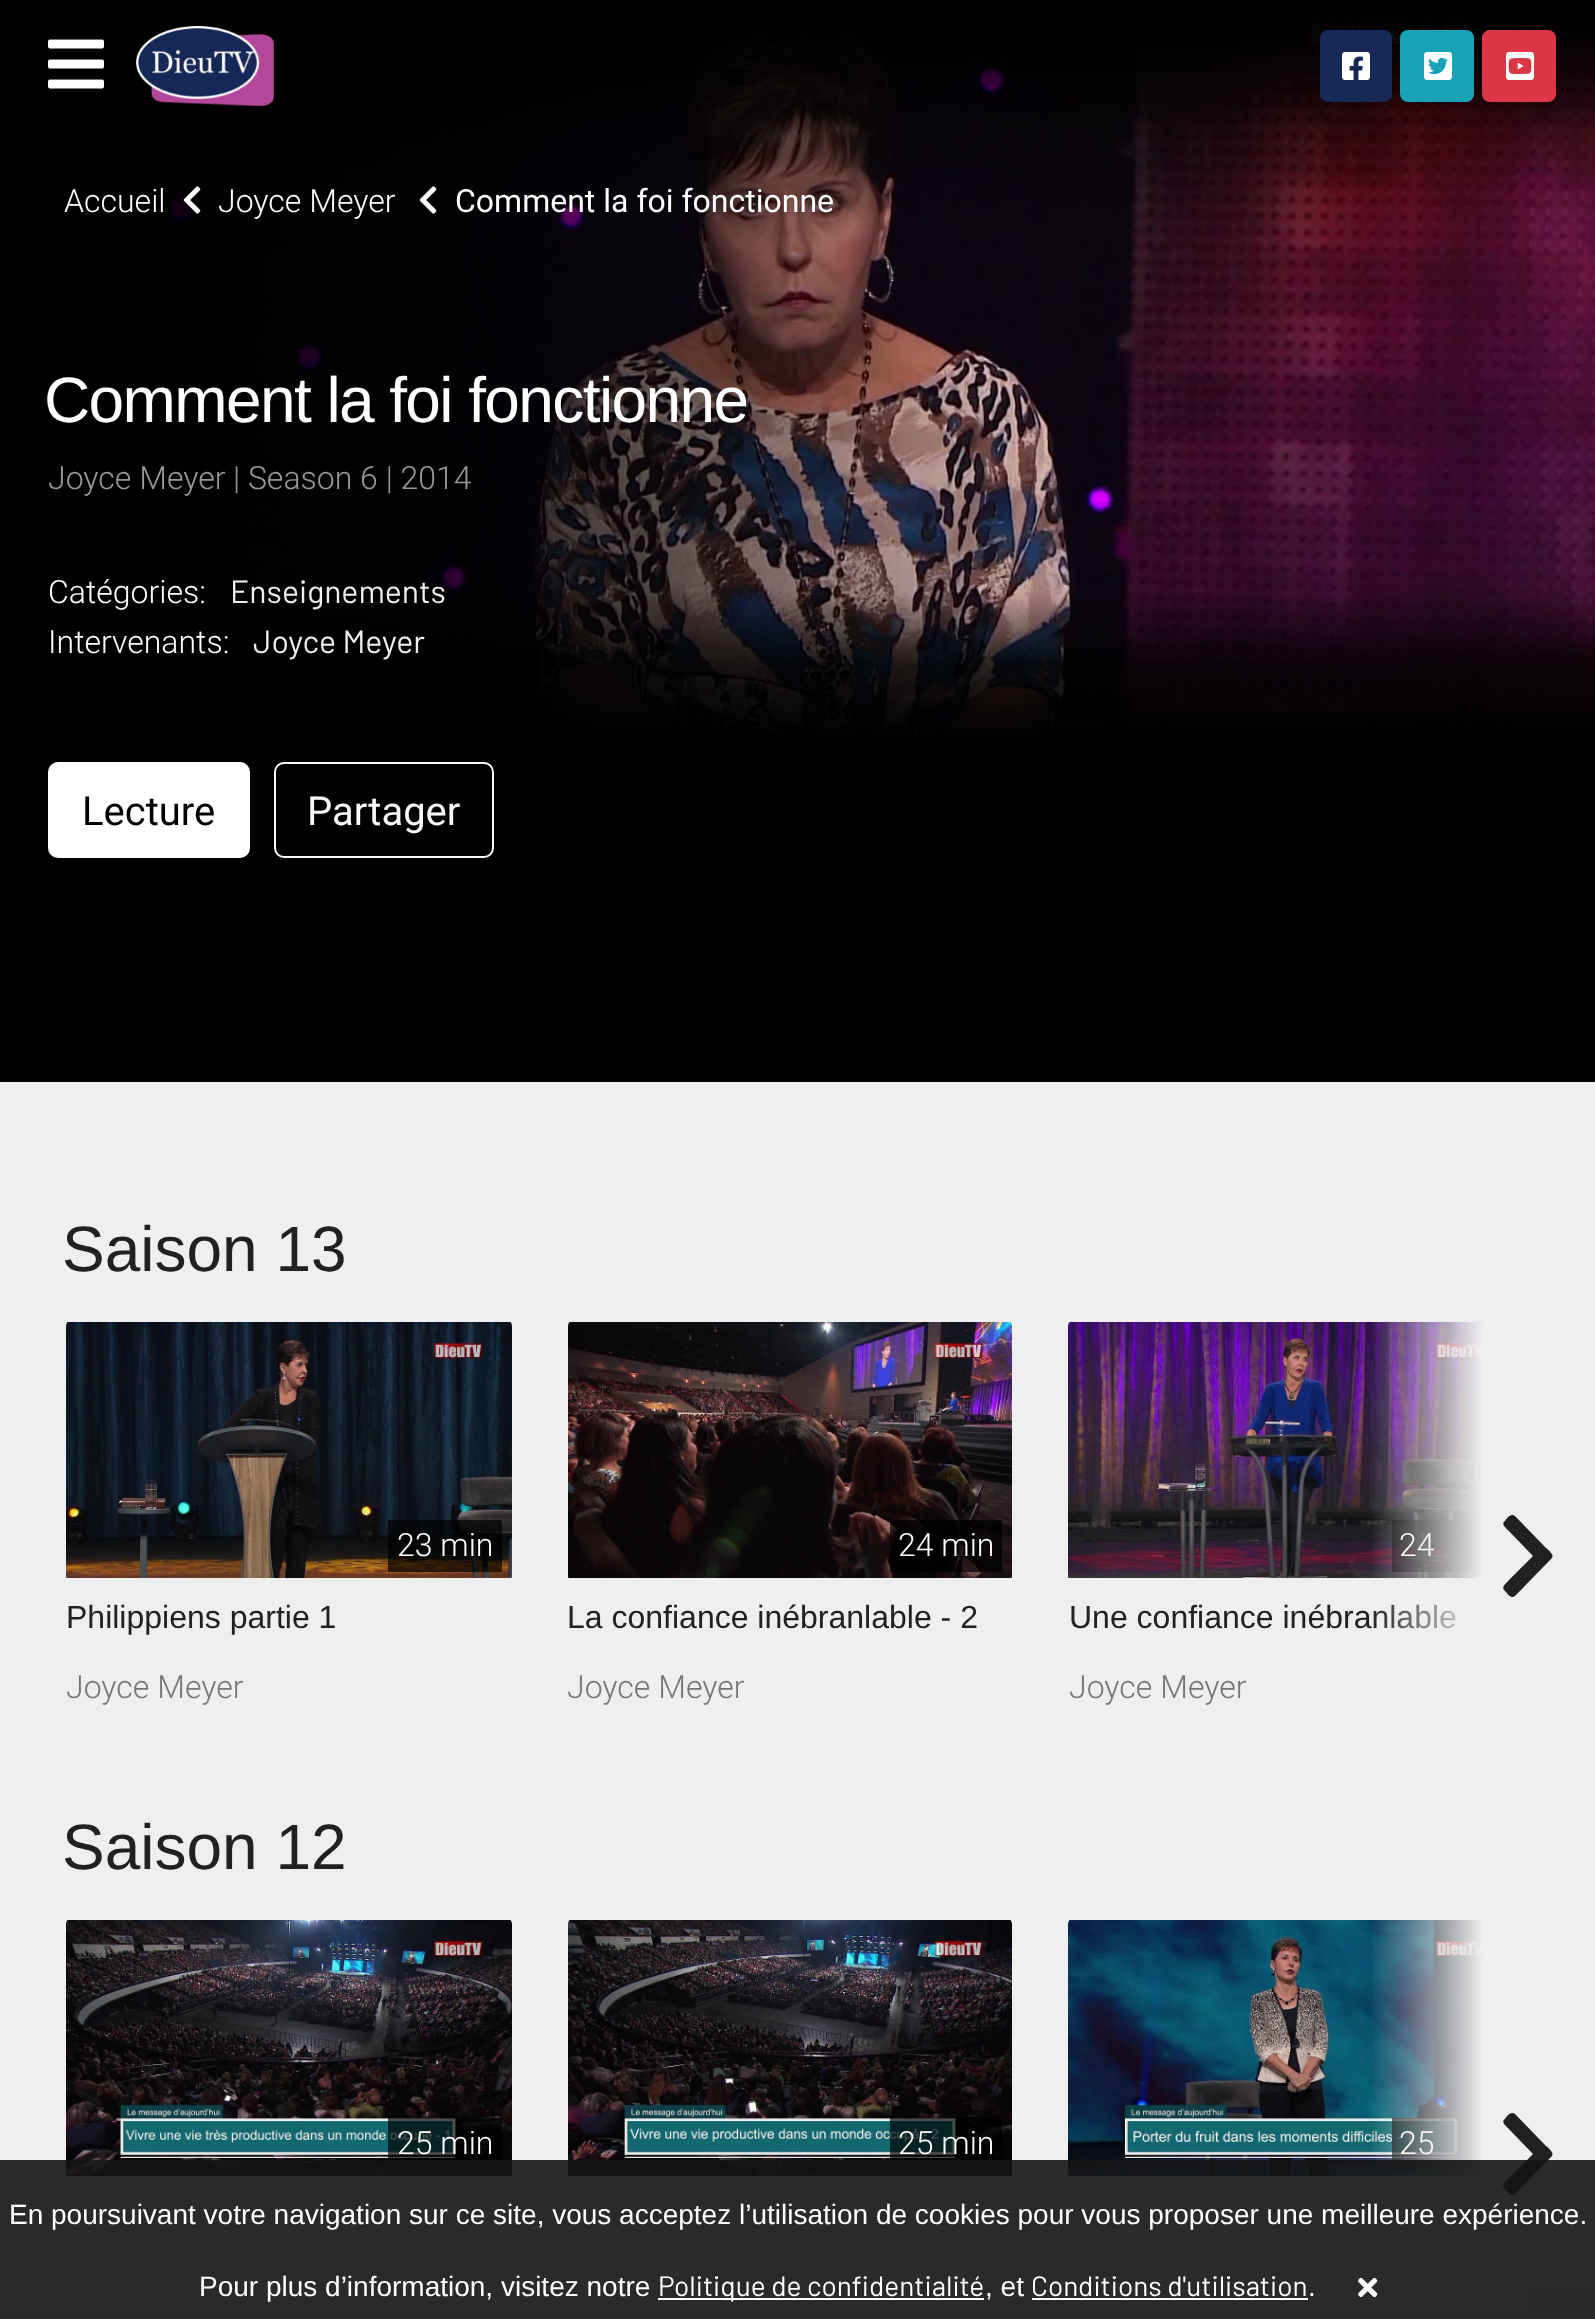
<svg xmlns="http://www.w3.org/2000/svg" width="1595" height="2319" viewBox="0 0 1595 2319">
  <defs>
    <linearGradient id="g1" gradientUnits="userSpaceOnUse" x1="1558" y1="1556" x2="1370" y2="1556"><stop offset="0" stop-color="rgb(239,239,239)"/><stop offset="0.4" stop-color="rgb(239,239,239)"/><stop offset="1" stop-color="rgb(239,239,239)" stop-opacity="0"/></linearGradient>
    <linearGradient id="g2" gradientUnits="userSpaceOnUse" x1="1558" y1="2154" x2="1370" y2="2154"><stop offset="0" stop-color="rgb(239,239,239)"/><stop offset="0.4" stop-color="rgb(239,239,239)"/><stop offset="1" stop-color="rgb(239,239,239)" stop-opacity="0"/></linearGradient>
  </defs>
  <rect width="100%" height="100%" fill="rgb(239,239,239)"/>
  <image x="0" y="0" width="1595" height="738" href="pic1.png"/>
  <image x="48" y="39" width="56" height="50" href="pic2.png"/>
  <image x="136" y="26" width="138" height="80" href="pic3.png"/>
  <rect x="1321" y="31" width="70" height="70" rx="7" fill="rgb(22,40,88)" stroke="rgb(22,40,88)" stroke-width="2"/>
  <image x="1342" y="52" width="28" height="28" href="pic4.png"/>
  <rect x="1401" y="31" width="72" height="70" rx="7" fill="rgb(23,162,184)" stroke="rgb(23,162,184)" stroke-width="2"/>
  <image x="1424" y="52" width="28" height="28" href="pic5.png"/>
  <rect x="1483" y="31" width="72" height="70" rx="7" fill="rgb(220,53,69)" stroke="rgb(220,53,69)" stroke-width="2"/>
  <image x="1506" y="52" width="28" height="28" href="pic6.png"/>
  <rect x="0" y="738" width="1595" height="344" fill="rgb(0,0,0)"/>
  <text x="64" y="212" font-family="Roboto" font-size="32" font-weight="300" fill="rgb(255,255,255)">Accueil</text>
  <image x="183" y="186" width="18" height="28" href="pic7.png"/>
  <text x="218" y="212" font-family="Roboto" font-size="32" font-weight="300" fill="rgb(255,255,255)">Joyce Meyer</text>
  <image x="419" y="186" width="18" height="28" href="pic8.png"/>
  <text x="455" y="212" font-family="Roboto" font-size="32" fill="rgb(255,255,255)">Comment la foi fonctionne</text>
  <text x="44" y="422" font-family="Liberation Sans" font-size="64" letter-spacing="-1.6" fill="rgb(255,255,255)">Comment la foi fonctionne</text>
  <g font-family="Roboto" font-size="32" font-weight="300" fill="rgb(153,153,153)">
    <text x="48" y="489">Joyce Meyer</text>
    <text x="233" y="489">| Season 6 | 2014</text>
  </g>
  <text x="48" y="603" font-family="Roboto" font-size="32" font-weight="300" fill="rgb(255,255,255)">Catégories:</text>
  <text x="230" y="603" font-family="Barlow" font-size="32" fill="rgb(239,239,239)">Enseignements</text>
  <text x="48" y="653" font-family="Roboto" font-size="32" font-weight="300" fill="rgb(255,255,255)">Intervenants:</text>
  <text x="253" y="653" font-family="Barlow" font-size="32" fill="rgb(239,239,239)">Joyce Meyer</text>
  <rect x="49" y="763" width="200" height="94" rx="9" fill="rgb(255,255,255)" stroke="rgb(255,255,255)" stroke-width="2"/>
  <text x="82" y="825" font-family="Roboto" font-size="40" fill="rgb(0,0,0)">Lecture</text>
  <rect x="275" y="763" width="218" height="94" rx="9" fill="none" stroke="rgb(248,249,250)" stroke-width="2"/>
  <text x="307" y="825" font-family="Roboto" font-size="40" fill="rgb(248,249,250)">Partager</text>
  <text x="62" y="1271" font-family="Liberation Sans" font-size="64" fill="rgb(33,33,33)">Saison 13</text>
  <image x="66" y="1322" width="446" height="256" href="pic9.png"/>
  <rect x="388" y="1520" width="114" height="52" fill="rgba(0,0,0,0.67)"/>
  <text x="397" y="1556" font-family="Roboto" font-size="32" font-weight="300" fill="rgb(255,255,255)">23 min</text>
  <text x="66" y="1628" font-family="Liberation Sans" font-size="32" fill="rgb(33,33,33)">Philippiens partie 1</text>
  <text x="66" y="1698" font-family="Roboto" font-size="32" font-weight="300" fill="rgb(118,118,118)">Joyce Meyer</text>
  <image x="568" y="1322" width="444" height="256" href="pic10.png"/>
  <rect x="890" y="1520" width="112" height="52" fill="rgba(0,0,0,0.67)"/>
  <text x="898" y="1556" font-family="Roboto" font-size="32" font-weight="300" fill="rgb(255,255,255)">24 min</text>
  <text x="567" y="1628" font-family="Liberation Sans" font-size="32" fill="rgb(33,33,33)">La confiance inébranlable - 2</text>
  <text x="567" y="1698" font-family="Roboto" font-size="32" font-weight="300" fill="rgb(118,118,118)">Joyce Meyer</text>
  <image x="1068" y="1322" width="414" height="256" href="pic11.png"/>
  <rect x="1392" y="1520" width="90" height="52" fill="rgba(0,0,0,0.67)"/>
  <text x="1399" y="1556" font-family="Roboto" font-size="32" font-weight="300" fill="rgb(255,255,255)">24</text>
  <text x="1069" y="1628" font-family="Liberation Sans" font-size="32" fill="rgb(33,33,33)">Une confiance inébranlable</text>
  <text x="1069" y="1698" font-family="Roboto" font-size="32" font-weight="300" fill="rgb(118,118,118)">Joyce Meyer</text>
  <rect x="1372" y="1322" width="110" height="307" fill="url(#g1)"/>
  <path d="M1551 1559L1515 1596C1512 1599 1508 1595 1506 1592C1500 1587 1505 1585 1509 1580L1533 1556L1504 1526C1503 1524 1503 1522 1505 1521C1507 1518 1511 1513 1515 1516L1545 1547C1547 1549 1556 1555 1551 1559Z" fill="rgb(33,33,33)"/>
  <text x="62" y="1869" font-family="Liberation Sans" font-size="64" fill="rgb(33,33,33)">Saison 12</text>
  <image x="66" y="1920" width="446" height="256" href="pic12.png"/>
  <rect x="388" y="2118" width="114" height="52" fill="rgba(0,0,0,0.67)"/>
  <text x="397" y="2154" font-family="Roboto" font-size="32" font-weight="300" fill="rgb(255,255,255)">25 min</text>
  <image x="568" y="1920" width="444" height="256" href="pic13.png"/>
  <rect x="890" y="2118" width="112" height="52" fill="rgba(0,0,0,0.67)"/>
  <text x="898" y="2154" font-family="Roboto" font-size="32" font-weight="300" fill="rgb(255,255,255)">25 min</text>
  <image x="1068" y="1920" width="414" height="256" href="pic14.png"/>
  <rect x="1392" y="2118" width="90" height="52" fill="rgba(0,0,0,0.67)"/>
  <text x="1399" y="2154" font-family="Roboto" font-size="32" font-weight="300" fill="rgb(255,255,255)">25</text>
  <rect x="1372" y="1920" width="110" height="256" fill="url(#g2)"/>
  <path d="M1551 2157L1515 2194C1512 2197 1508 2193 1506 2190C1500 2185 1505 2183 1509 2178L1533 2154L1504 2124C1503 2122 1503 2120 1505 2119C1507 2116 1511 2111 1515 2114L1545 2145C1547 2147 1556 2153 1551 2157Z" fill="rgb(33,33,33)"/>
  <rect x="0" y="2160" width="1595" height="159" fill="rgba(20,20,20,0.9)"/>
  <g font-family="Liberation Sans" font-size="28" fill="rgb(255,255,255)">
    <text x="9" y="2224">En poursuivant votre navigation sur ce site, vous acceptez l’utilisation de cookies pour vous proposer une meilleure expérience.</text>
    <text x="199" y="2296">Pour plus d’information, visitez notre</text>
  </g>
  <rect x="658" y="2298" width="326" height="2" fill="rgb(255,255,255)"/>
  <text x="658" y="2296" font-family="Barlow" font-size="28" fill="rgb(255,255,255)">Politique de confidentialité</text>
  <text x="985" y="2296" font-family="Liberation Sans" font-size="28" fill="rgb(255,255,255)">, et</text>
  <text x="1031" y="2296" font-family="Barlow" font-size="28" fill="rgb(255,255,255)">Conditions d'utilisation</text>
  <rect x="1032" y="2298" width="276" height="2" fill="rgb(255,255,255)"/>
  <text x="1308" y="2296" font-family="Liberation Sans" font-size="28" fill="rgb(255,255,255)">.</text>
  <image x="1358" y="2277" width="20" height="21" href="pic15.png"/>
</svg>
